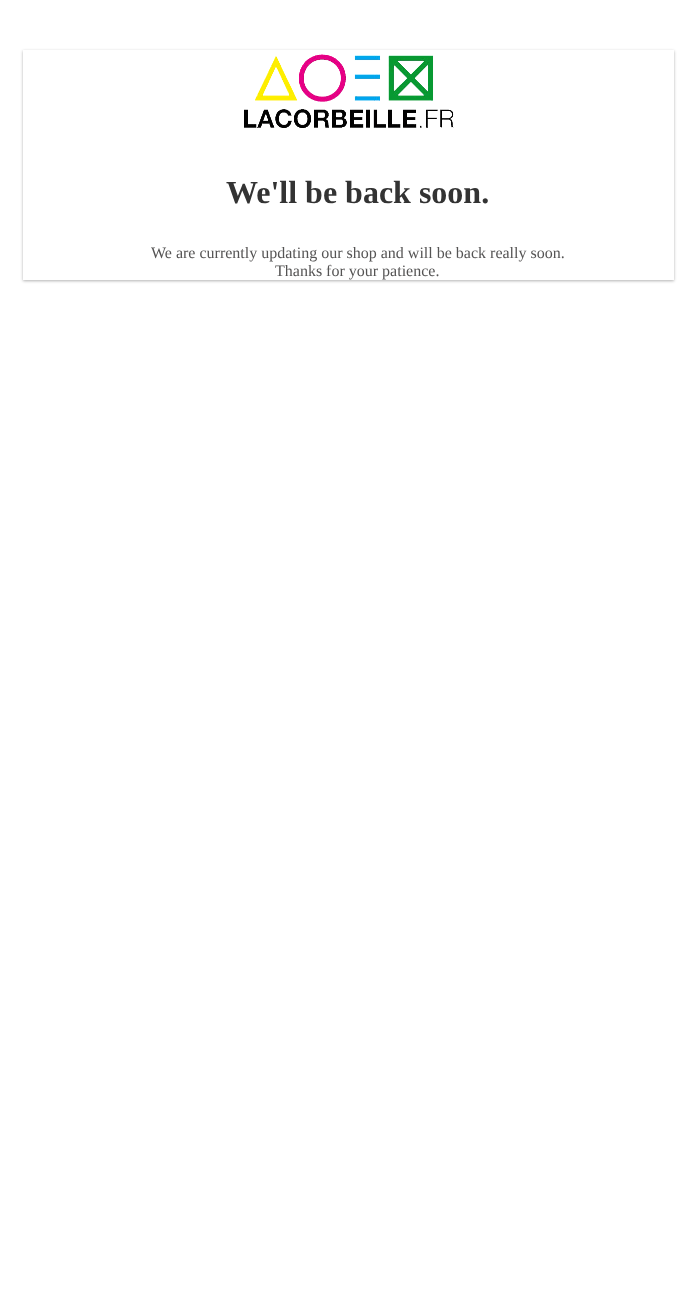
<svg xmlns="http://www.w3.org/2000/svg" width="697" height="1308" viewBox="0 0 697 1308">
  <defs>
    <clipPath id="clip1"><path d="M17 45H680V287H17ZM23 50H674V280H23Z" clip-rule="evenodd"/></clipPath>
  </defs>
  <rect width="100%" height="100%" fill="rgb(255,255,255)"/>
  <g clip-path="url(#clip1)">
    <rect x="23" y="51" width="651" height="230" fill="rgba(0,0,0,0.3)" filter="blur(1.5px)"/>
  </g>
  <image x="244" y="54" width="210" height="74" href="pic1.png"/>
  <text x="226" y="203" font-family="Liberation Serif" font-size="32" font-weight="bold" fill="rgb(51,51,51)">We'll be back soon.</text>
  <g font-family="Liberation Serif" font-size="16" fill="rgb(85,84,84)">
    <text x="151" y="258">We are currently updating our shop and will be back really soon.</text>
    <text x="275" y="276">Thanks for your patience.</text>
  </g>
</svg>
